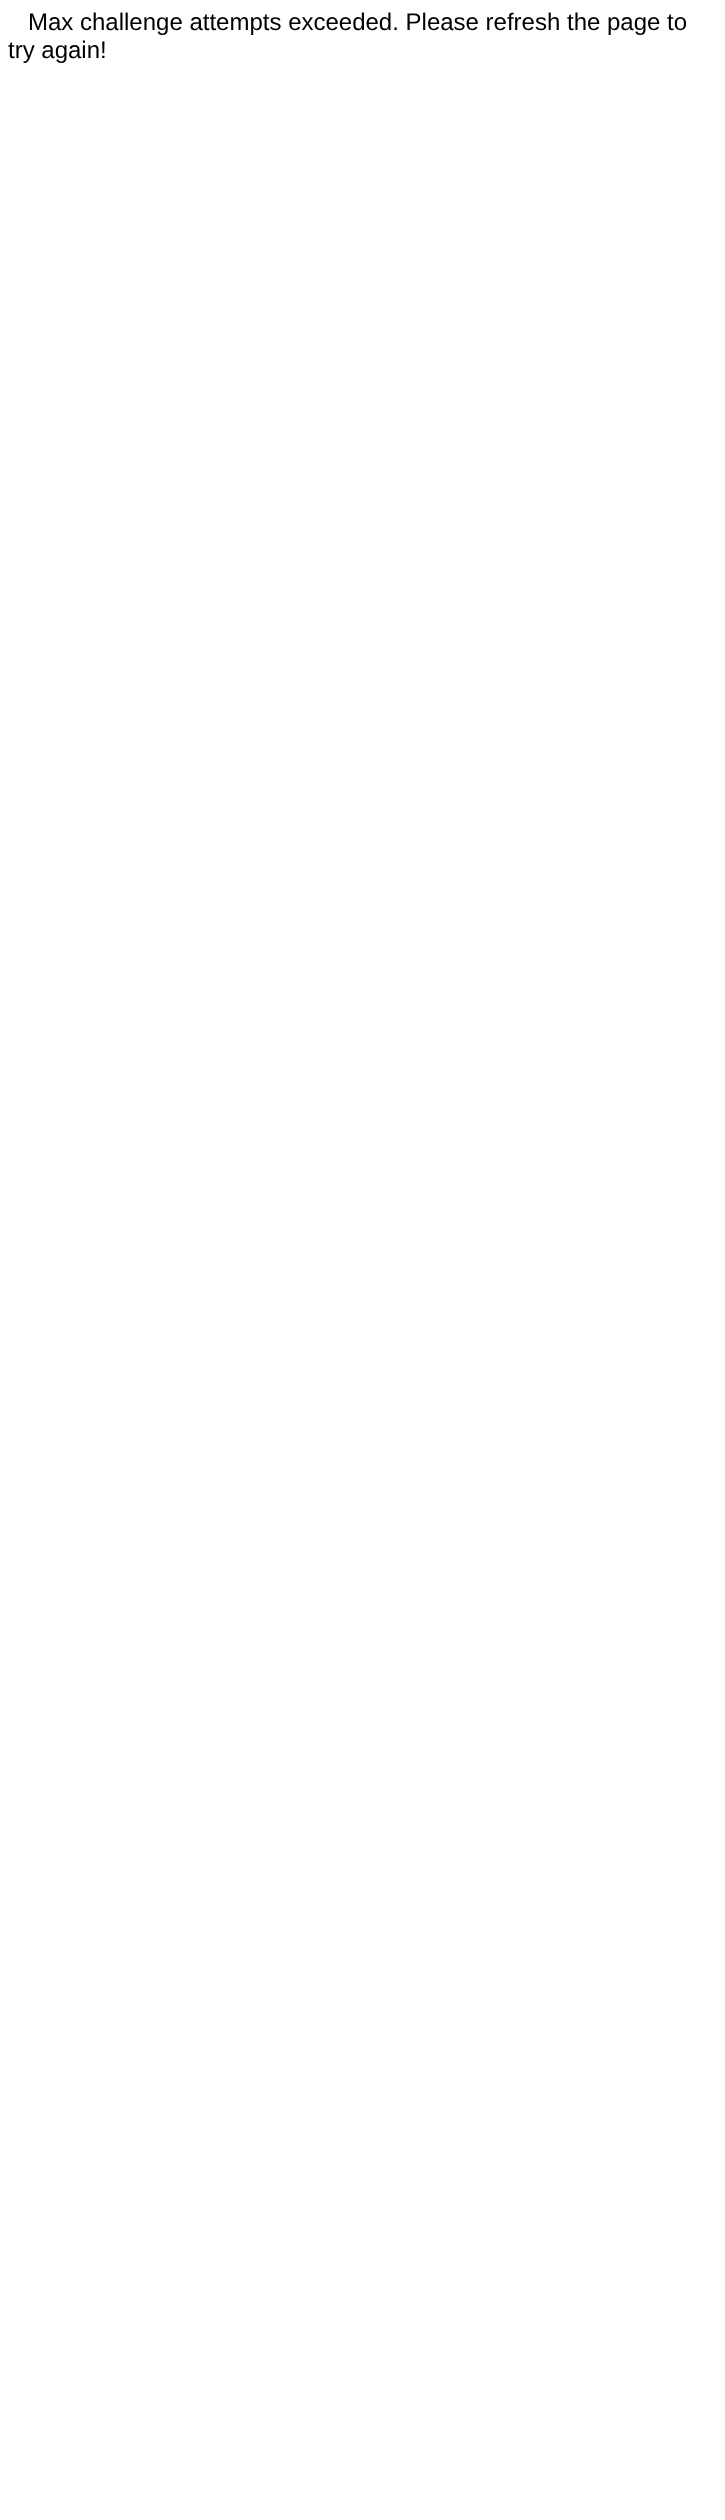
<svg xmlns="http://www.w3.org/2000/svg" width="725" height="2520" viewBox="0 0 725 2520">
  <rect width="100%" height="100%" fill="rgb(255,255,255)"/>
  <g font-family="Liberation Sans" font-size="24" fill="rgb(0,0,0)">
    <text x="28" y="30">Max challenge attempts exceeded. Please refresh the page to</text>
    <text x="8" y="58">try again!</text>
  </g>
</svg>
